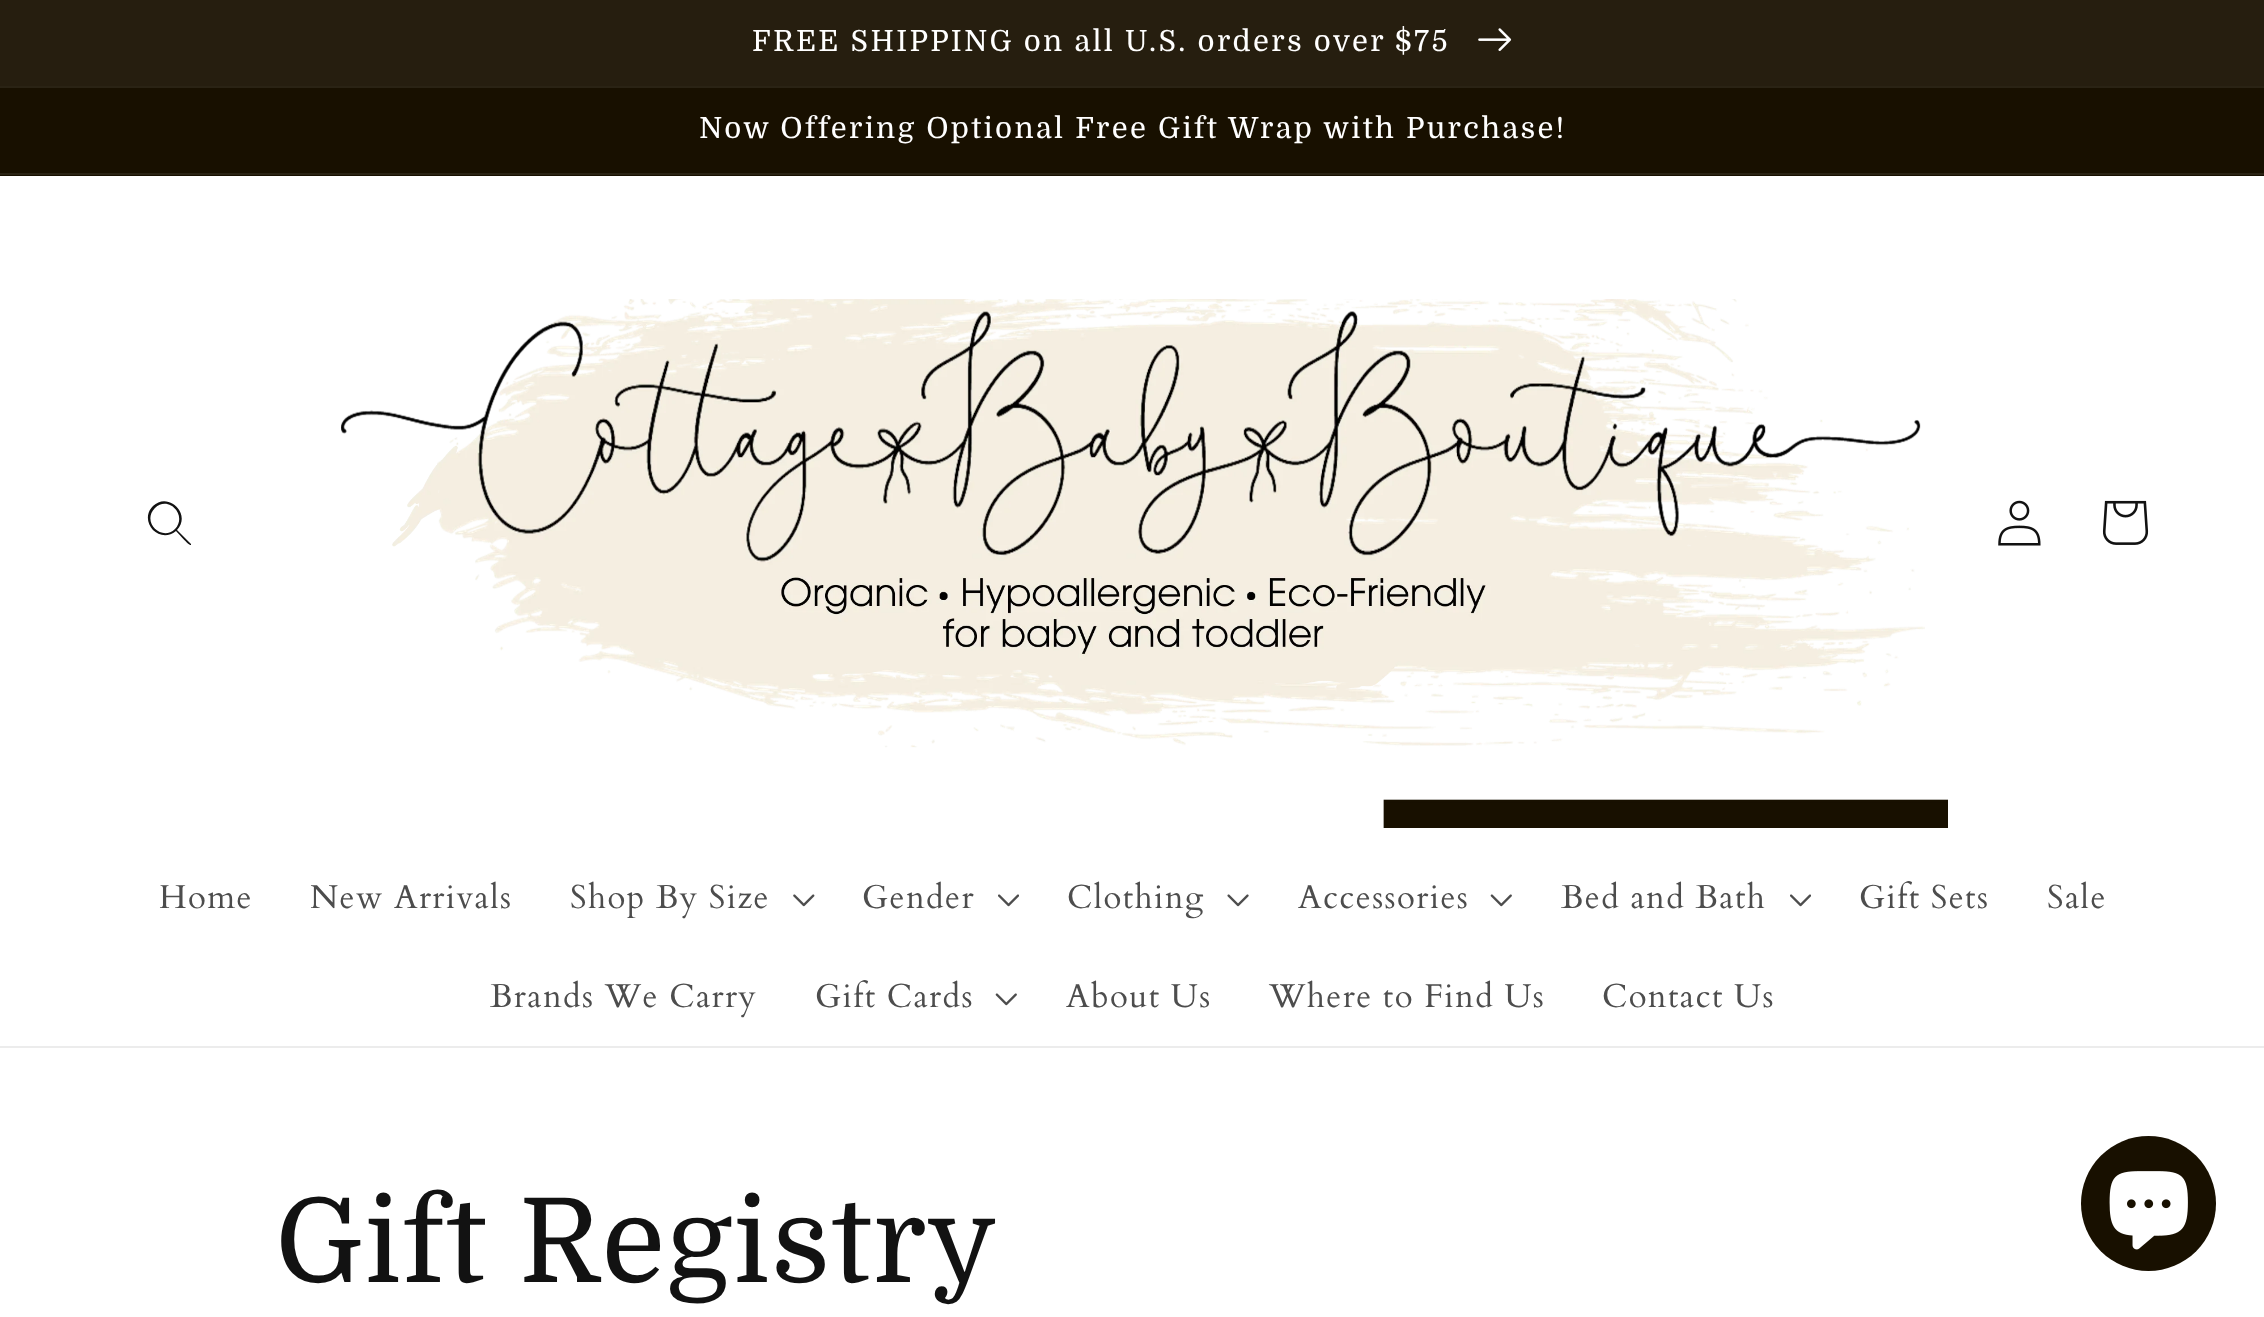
<svg xmlns="http://www.w3.org/2000/svg" width="2264" height="1317" viewBox="0 0 2264 1317">
  <rect width="100%" height="100%" fill="rgb(255,255,255)"/>
  <rect x="0" y="86" width="2264" height="2" fill="rgb(42,35,20)"/>
  <rect x="0" y="0" width="2264" height="86" fill="rgb(38,30,15)"/>
  <text x="752" y="51" font-family="Domine" font-size="29.25" letter-spacing="2.35" fill="rgb(255,255,255)">FREE SHIPPING on all U.S. orders over $75</text>
  <image x="1478" y="28" width="34" height="23" href="pic1.png"/>
  <rect x="0" y="88" width="2264" height="88" fill="rgb(24,16,0)"/>
  <rect x="0" y="173" width="2264" height="2" fill="rgb(42,35,20)"/>
  <text x="699" y="138" font-family="Domine" font-size="29.25" letter-spacing="2.35" fill="rgb(255,255,255)">Now Offering Optional Free Gift Wrap with Purchase!</text>
  <rect x="0" y="1046" width="2264" height="2" fill="rgb(236,236,236)"/>
  <path d="M175 529C162 542 141 522 155 508C168 495 188 515 175 529ZM176 531C159 545 138 521 153 506C168 491 192 514 177 530L191 544V545C189 546 178 533 176 531Z" fill="rgb(18,18,18)" fill-rule="evenodd"/>
  <image x="341" y="299" width="1607" height="529" href="pic2.png"/>
  <image x="1998" y="500" width="43" height="46" href="pic3.png"/>
  <image x="2102" y="500" width="47" height="45" href="pic4.png"/>
  <g font-family="Cardo" font-size="33" letter-spacing="1.4" fill="rgb(77,77,77)">
    <text x="159" y="908">Home</text>
    <text x="310" y="908">New Arrivals</text>
    <text x="570" y="908">Shop By Size</text>
  </g>
  <image x="793" y="894" width="22" height="13" href="pic5.png"/>
  <text x="862" y="908" font-family="Cardo" font-size="33" letter-spacing="1.4" fill="rgb(77,77,77)">Gender</text>
  <image x="998" y="894" width="21" height="13" href="pic6.png"/>
  <text x="1067" y="908" font-family="Cardo" font-size="33" letter-spacing="1.4" fill="rgb(77,77,77)">Clothing</text>
  <image x="1227" y="894" width="22" height="13" href="pic7.png"/>
  <text x="1298" y="908" font-family="Cardo" font-size="33" letter-spacing="1.4" fill="rgb(77,77,77)">Accessories</text>
  <image x="1490" y="894" width="22" height="13" href="pic8.png"/>
  <text x="1561" y="908" font-family="Cardo" font-size="33" letter-spacing="1.4" fill="rgb(77,77,77)">Bed and Bath</text>
  <image x="1790" y="894" width="21" height="13" href="pic6.png"/>
  <g font-family="Cardo" font-size="33" letter-spacing="1.4" fill="rgb(77,77,77)">
    <text x="1859" y="908">Gift Sets</text>
    <text x="2047" y="908">Sale</text>
    <text x="490" y="1007">Brands We Carry</text>
    <text x="815" y="1007">Gift Cards</text>
  </g>
  <image x="995" y="993" width="22" height="13" href="pic8.png"/>
  <g font-family="Cardo" font-size="33" letter-spacing="1.4" fill="rgb(77,77,77)">
    <text x="1066" y="1007">About Us</text>
    <text x="1269" y="1007">Where to Find Us</text>
    <text x="1602" y="1007">Contact Us</text>
  </g>
  <text x="275" y="1282" font-family="Domine" font-size="117" letter-spacing="1.4" fill="rgb(18,18,18)">Gift Registry</text>
  <circle cx="2148.5" cy="1203.5" r="67.5" fill="rgb(24,16,0)"/>
  <image x="2109" y="1171" width="79" height="79" href="pic9.png"/>
</svg>
